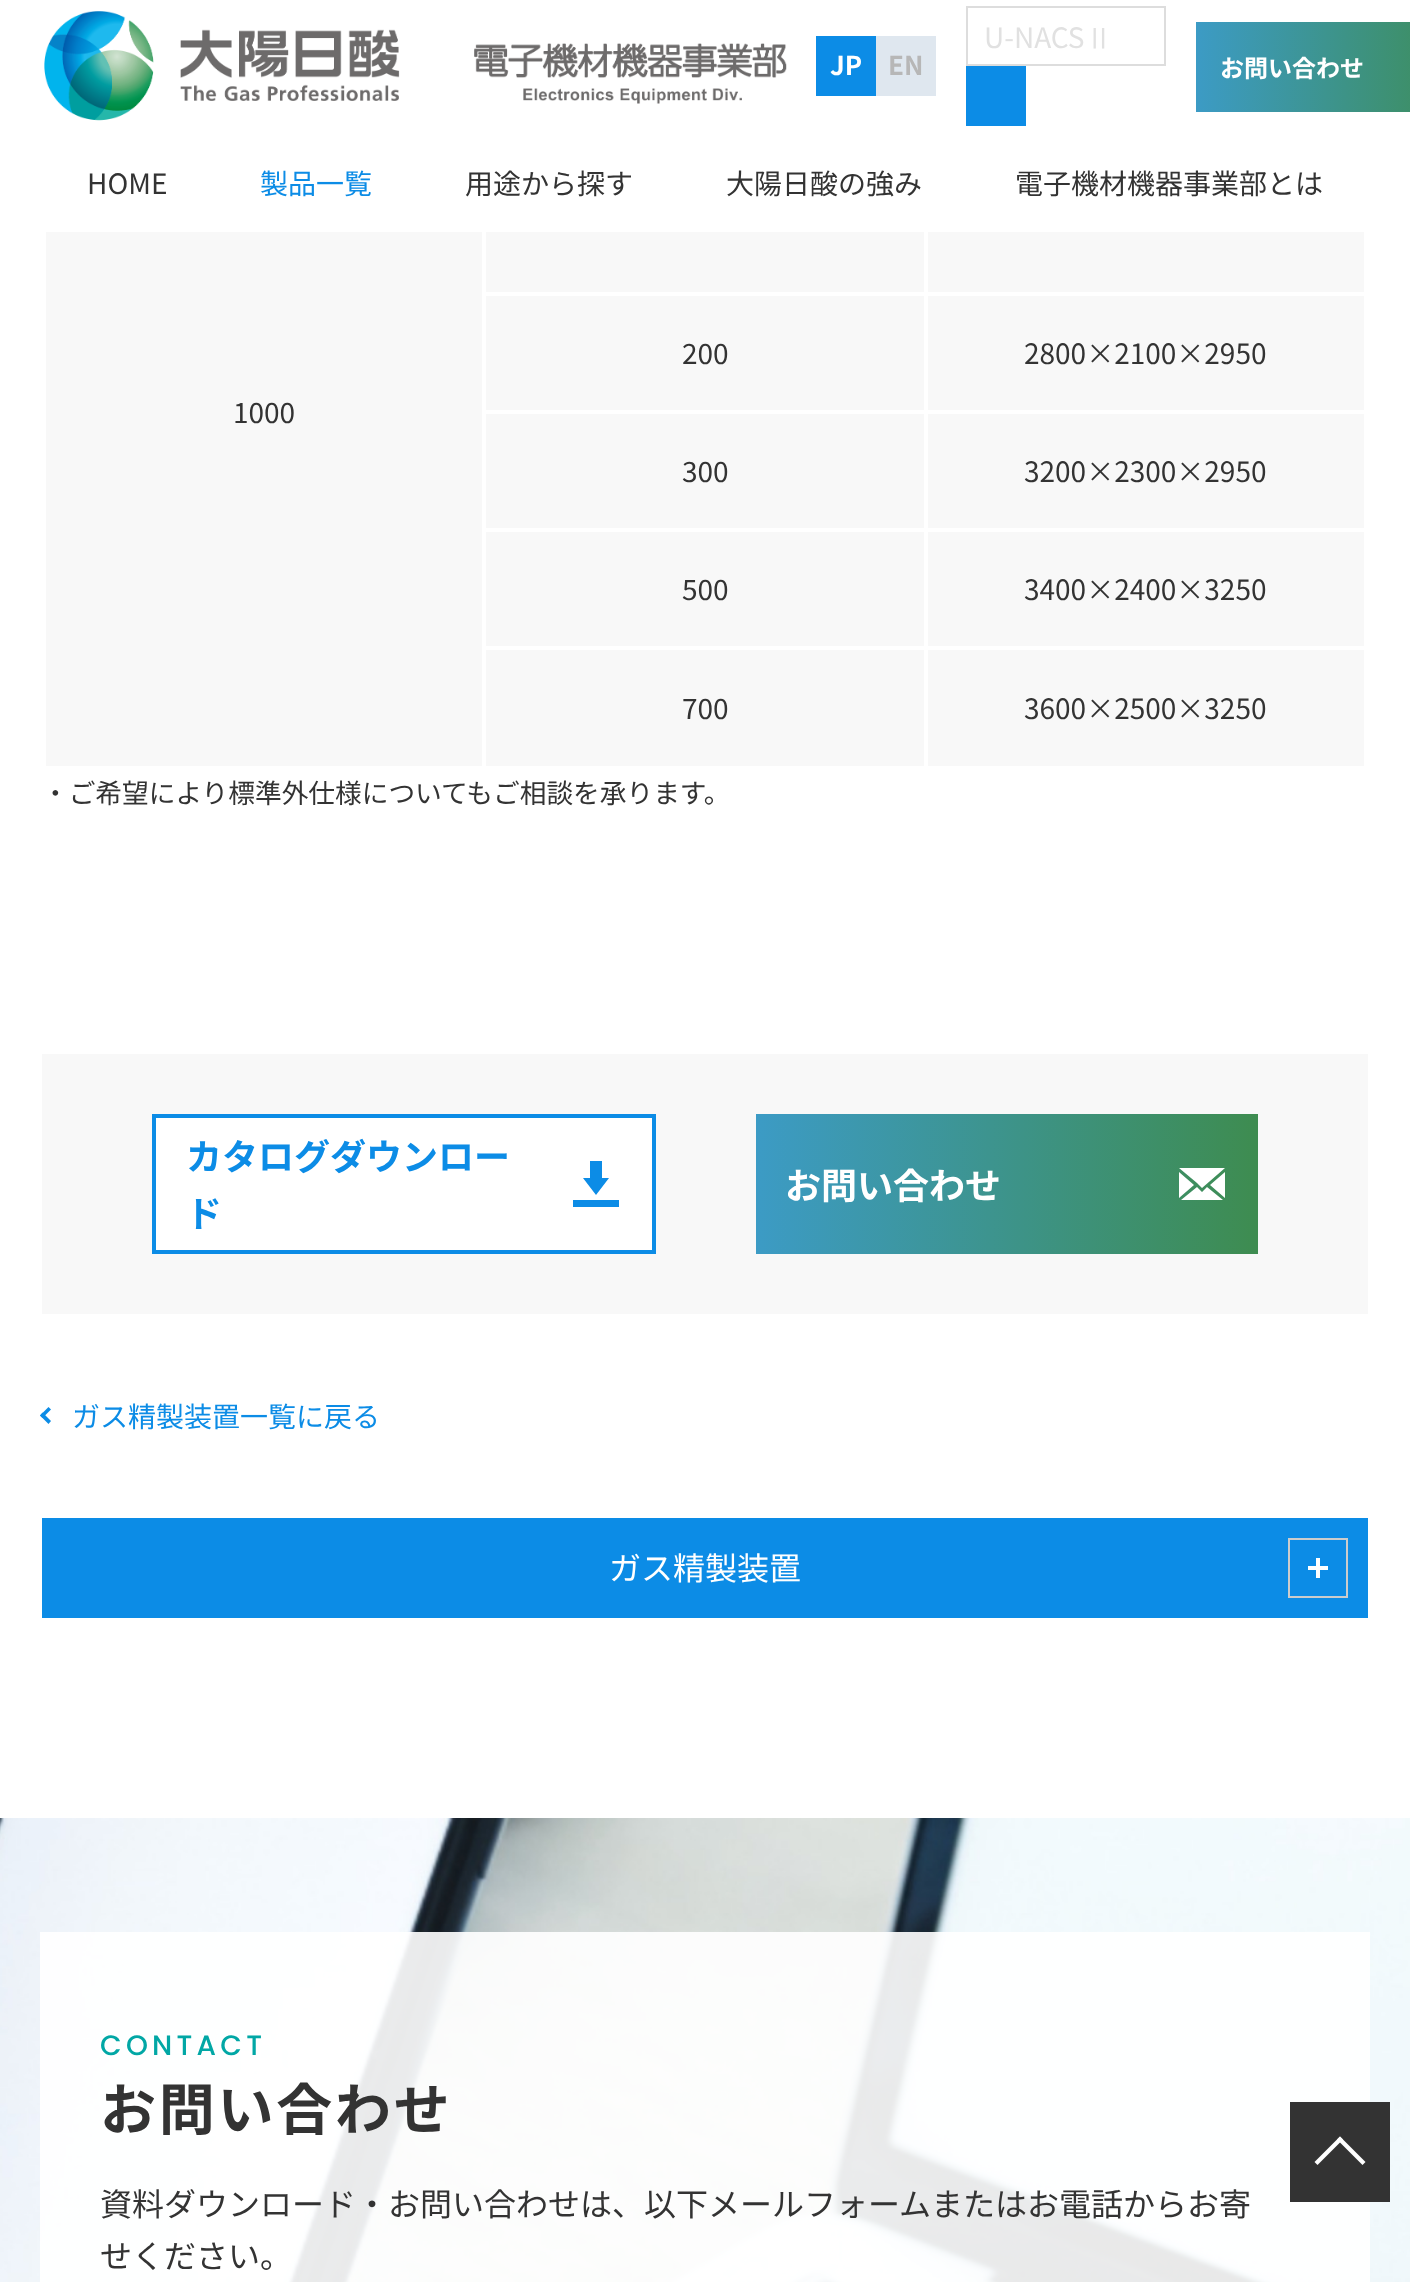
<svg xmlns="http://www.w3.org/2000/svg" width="1410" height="2282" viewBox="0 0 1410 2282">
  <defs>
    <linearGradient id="g1" gradientUnits="userSpaceOnUse" x1="1196" y1="67" x2="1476" y2="67"><stop offset="0" stop-color="rgb(60,155,197)"/><stop offset="1" stop-color="rgb(62,140,80)"/></linearGradient>
    <linearGradient id="g2" gradientUnits="userSpaceOnUse" x1="756" y1="1184" x2="1258" y2="1184"><stop offset="0" stop-color="rgb(60,155,197)"/><stop offset="1" stop-color="rgb(62,140,80)"/></linearGradient>
  </defs>
  <rect width="100%" height="100%" fill="rgb(255,255,255)"/>
  <image x="44" y="11" width="743" height="110" href="pic1.png"/>
  <rect x="967" y="7" width="198" height="58" fill="none" stroke="rgb(221,221,221)" stroke-width="2"/>
  <text x="984" y="48" font-family="Noto Sans JP" font-size="28" fill="rgb(225,225,225)">U-NACS</text>
  <text x="1085" y="48" font-family="WenQuanYi Zen Hei" font-size="28" font-weight="500" fill="rgb(225,225,225)">Ⅱ</text>
  <rect x="966" y="66" width="60" height="60" fill="rgb(12,140,230)"/>
  <rect x="816" y="36" width="60" height="60" fill="rgb(12,140,230)"/>
  <text x="830" y="75" font-family="Noto Sans JP" font-size="26" font-weight="bold" fill="rgb(255,255,255)">JP</text>
  <rect x="876" y="36" width="60" height="60" fill="rgb(223,231,239)"/>
  <text x="888" y="75" font-family="Noto Sans JP" font-size="26" font-weight="bold" fill="rgb(183,183,183)">EN</text>
  <rect x="1196" y="22" width="214" height="90" fill="url(#g1)"/>
  <text x="1220" y="77" font-family="Noto Sans JP" font-size="24" font-weight="bold" fill="rgb(255,255,255)">お問い合わせ</text>
  <text x="87" y="194" font-family="Noto Sans JP" font-size="28" fill="rgb(51,51,51)">HOME</text>
  <text x="260" y="194" font-family="Noto Sans JP" font-size="28" fill="rgb(12,140,230)">製品一覧</text>
  <g font-family="Noto Sans JP" font-size="28" fill="rgb(51,51,51)">
    <text x="465" y="194">用途から探す</text>
    <text x="726" y="194">大陽日酸の強み</text>
    <text x="1015" y="194">電子機材機器事業部とは</text>
  </g>
  <rect x="486" y="232" width="438" height="60" fill="rgb(248,248,248)"/>
  <rect x="928" y="232" width="436" height="60" fill="rgb(248,248,248)"/>
  <rect x="486" y="296" width="438" height="114" fill="rgb(248,248,248)"/>
  <text x="682" y="364" font-family="Noto Sans JP" font-size="28" fill="rgb(51,51,51)">200</text>
  <rect x="928" y="296" width="436" height="114" fill="rgb(248,248,248)"/>
  <text x="1024" y="364" font-family="Noto Sans JP" font-size="28" fill="rgb(51,51,51)">2800×2100×2950</text>
  <rect x="46" y="232" width="436" height="534" fill="rgb(248,248,248)"/>
  <text x="233" y="423" font-family="Noto Sans JP" font-size="28" fill="rgb(51,51,51)">1000</text>
  <rect x="486" y="414" width="438" height="114" fill="rgb(248,248,248)"/>
  <text x="682" y="482" font-family="Noto Sans JP" font-size="28" fill="rgb(51,51,51)">300</text>
  <rect x="928" y="414" width="436" height="114" fill="rgb(248,248,248)"/>
  <text x="1024" y="482" font-family="Noto Sans JP" font-size="28" fill="rgb(51,51,51)">3200×2300×2950</text>
  <rect x="486" y="532" width="438" height="114" fill="rgb(248,248,248)"/>
  <text x="682" y="600" font-family="Noto Sans JP" font-size="28" fill="rgb(51,51,51)">500</text>
  <rect x="928" y="532" width="436" height="114" fill="rgb(248,248,248)"/>
  <text x="1024" y="600" font-family="Noto Sans JP" font-size="28" fill="rgb(51,51,51)">3400×2400×3250</text>
  <rect x="486" y="650" width="438" height="116" fill="rgb(248,248,248)"/>
  <text x="682" y="719" font-family="Noto Sans JP" font-size="28" fill="rgb(51,51,51)">700</text>
  <rect x="928" y="650" width="436" height="116" fill="rgb(248,248,248)"/>
  <text x="1024" y="719" font-family="Noto Sans JP" font-size="28" fill="rgb(51,51,51)">3600×2500×3250</text>
  <text x="42" y="803" font-family="Noto Sans JP" font-size="26.7" fill="rgb(51,51,51)">・ご希望により標準外仕様についてもご相談を承ります。</text>
  <rect x="42" y="1054" width="1326" height="260" fill="rgb(248,248,248)"/>
  <rect x="154" y="1116" width="500" height="136" fill="rgb(255,255,255)" stroke="rgb(12,140,230)" stroke-width="4"/>
  <text x="186" y="1170" font-family="Noto Sans JP" font-size="36" font-weight="bold" fill="rgb(12,140,230)">カタログダウンロー</text>
  <path d="M619 1200V1207H573V1200ZM596 1195L609 1178H602V1161H590V1178H583Z" fill="rgb(12,140,230)"/>
  <text x="186" y="1227" font-family="Noto Sans JP" font-size="36" font-weight="bold" fill="rgb(12,140,230)">ド</text>
  <rect x="756" y="1114" width="502" height="140" fill="url(#g2)"/>
  <text x="785" y="1199" font-family="Noto Sans JP" font-size="36" font-weight="bold" fill="rgb(255,255,255)">お問い合わせ</text>
  <path d="M1179 1172V1198L1194 1185ZM1197 1183L1202 1188L1225 1168H1179ZM1225 1198V1172L1210 1185ZM1202 1192L1197 1187L1181 1200H1223L1207 1187Z" fill="rgb(255,255,255)"/>
  <path d="M48.5 1424L40 1415.5L42.5 1412.5L51 1421Z" fill="rgb(12,140,230)"/>
  <path d="M42.5 1418L40 1415.5L48.5 1407L51 1409.5Z" fill="rgb(12,140,230)"/>
  <text x="72" y="1427" font-family="Noto Sans JP" font-size="28" fill="rgb(12,140,230)">ガス精製装置一覧に戻る</text>
  <rect x="42" y="1518" width="1326" height="100" fill="rgb(12,140,230)"/>
  <text x="609" y="1580" font-family="Noto Sans JP" font-size="32" fill="rgb(255,255,255)">ガス精製装置</text>
  <rect x="1289" y="1539" width="58" height="58" fill="none" stroke="rgb(204,204,204)" stroke-width="2"/>
  <rect x="1308" y="1566" width="20" height="4" fill="rgb(255,255,255)"/>
  <rect x="1316" y="1558" width="4" height="20" fill="rgb(255,255,255)"/>
  <image x="0" y="1818" width="1410" height="464" href="pic2.png"/>
  <rect x="40" y="1932" width="1330" height="350" fill="rgba(255,255,255,0.91)"/>
  <text x="100" y="2055" font-family="Poppins" font-size="28" font-weight="500" letter-spacing="4.25" fill="rgb(1,167,165)">CONTACT</text>
  <text x="100" y="2130" font-family="Noto Sans JP" font-size="56" font-weight="bold" letter-spacing="2.75" fill="rgb(51,51,51)">お問い合わせ</text>
  <g font-family="Noto Sans JP" font-size="32" fill="rgb(51,51,51)">
    <text>
      <tspan x="100" y="2216">資料ダウンロード・お問い合わせは、以下メールフォームまたはお電話からお寄</tspan>
      <tspan x="100" y="2268">せください。</tspan>
    </text>
  </g>
  <rect x="1290" y="2102" width="100" height="100" fill="rgb(51,51,51)"/>
  <path d="M1314.5 2162L1340 2136.5L1343 2139.5L1317.5 2165Z" fill="rgb(255,255,255)"/>
  <path d="M1337 2139.5L1340 2136.5L1365.5 2162L1362.5 2165Z" fill="rgb(255,255,255)"/>
</svg>
